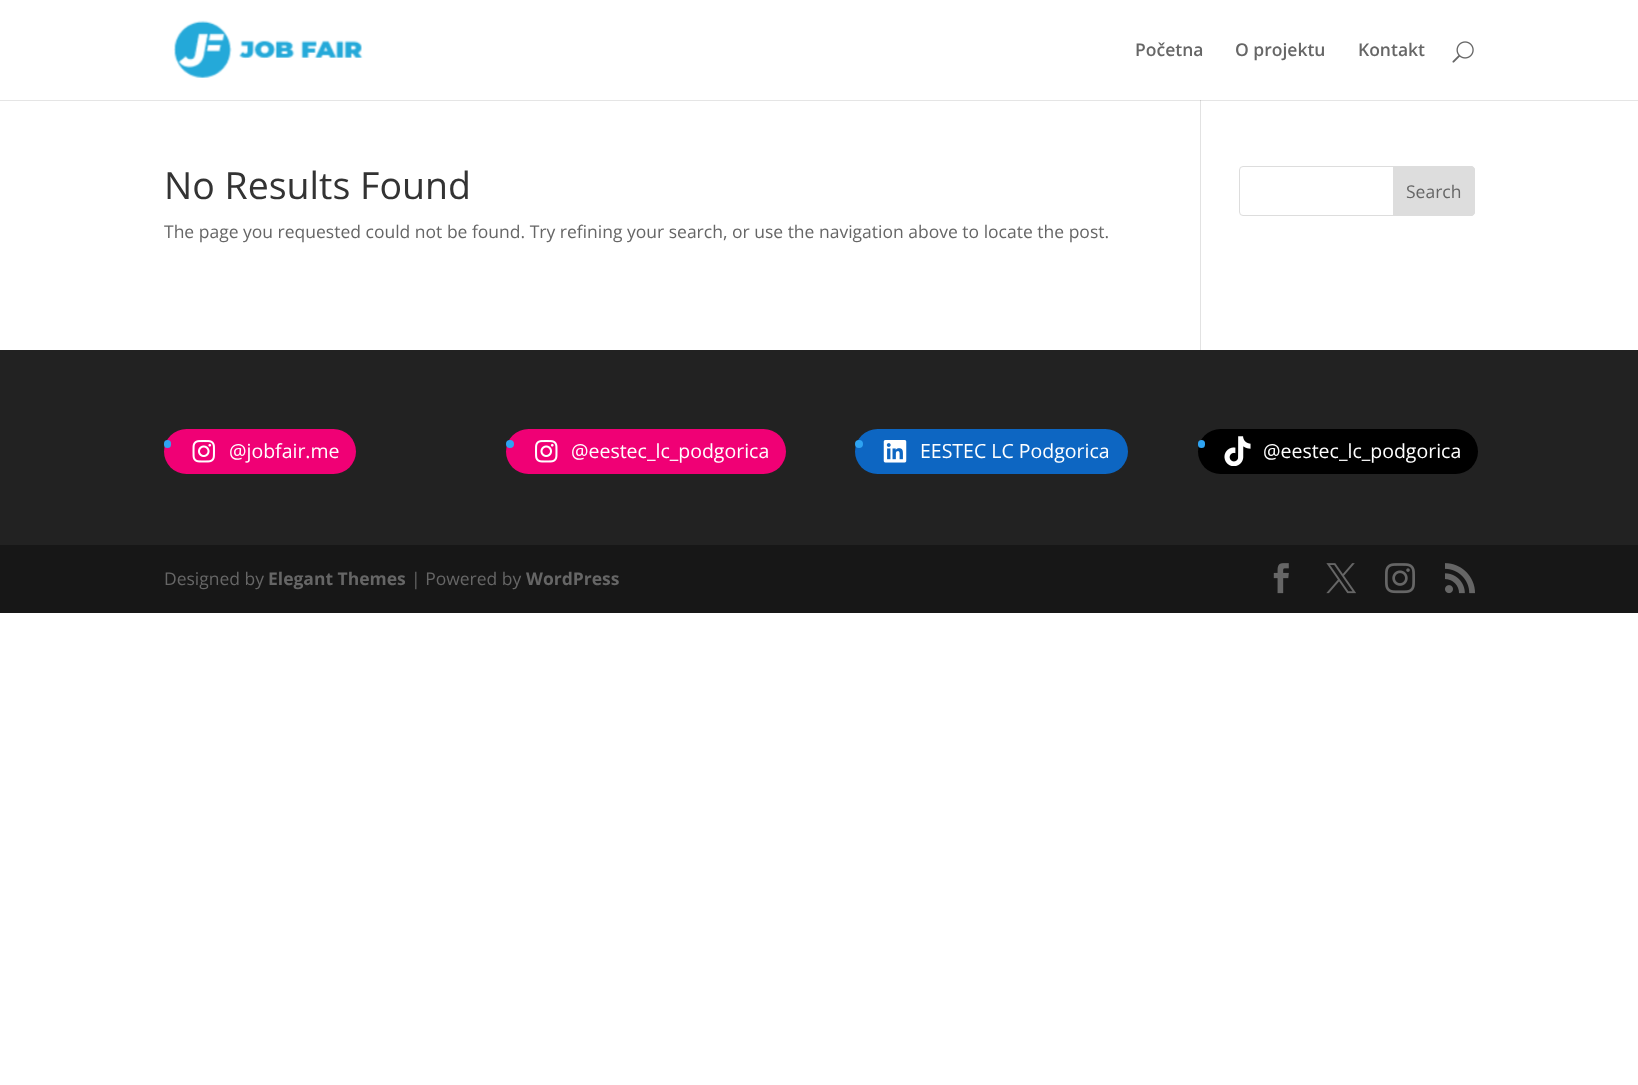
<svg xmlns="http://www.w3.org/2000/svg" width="1638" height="1085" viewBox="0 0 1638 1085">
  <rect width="100%" height="100%" fill="rgb(255,255,255)"/>
  <rect x="1200" y="94" width="1" height="256" fill="rgb(226,226,226)"/>
  <path d="M0 100V101H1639V1V100Z" fill="rgba(0,0,0,0.1)"/>
  <rect x="1200" y="94" width="1" height="6" fill="rgb(255,255,255)"/>
  <image x="173" y="20" width="190" height="58" href="pic1.png"/>
  <g font-family="Open Sans" font-size="17.5" font-weight="600" fill="rgb(102,102,102)">
    <text x="1135" y="56">Početna</text>
    <text x="1235" y="56">O projektu</text>
    <text x="1358" y="56">Kontakt</text>
  </g>
  <image x="1452" y="41" width="22" height="22" href="pic2.png"/>
  <text x="164" y="199" font-family="Open Sans" font-size="37.5" fill="rgb(51,51,51)">No Results Found</text>
  <text x="164" y="238" font-family="Open Sans" font-size="17.5" fill="rgb(102,102,102)">The page you requested could not be found. Try refining your search, or use the navigation above to locate the post.</text>
  <rect x="1239.5" y="166.5" width="235" height="49" rx="3.5" fill="none" stroke="rgb(221,221,221)"/>
  <path d="M1393.5 166.5H1471C1473 166.5 1474.5 168 1474.5 170V212C1474.5 214 1473 215.5 1471 215.5H1393.5Z" fill="rgb(221,221,221)" stroke="rgb(221,221,221)"/>
  <text x="1406" y="198" font-family="Open Sans" font-size="17.5" fill="rgb(102,102,102)">Search</text>
  <rect x="0" y="350" width="1638" height="195" fill="rgb(34,34,34)"/>
  <rect x="164" y="429" width="192" height="45" rx="22.5" fill="rgb(240,0,117)"/>
  <rect x="164" y="440" width="7" height="8" rx="3.5" fill="rgb(46,163,242)"/>
  <image x="192" y="440" width="23" height="23" href="pic3.png"/>
  <text x="229" y="458" font-family="Open Sans" font-size="19.5" fill="rgb(255,255,255)">@jobfair.me</text>
  <rect x="506" y="429" width="280" height="45" rx="22.5" fill="rgb(240,0,117)"/>
  <circle cx="510" cy="444" r="4" fill="rgb(46,163,242)"/>
  <image x="535" y="440" width="23" height="23" href="pic4.png"/>
  <text x="571" y="458" font-family="Open Sans" font-size="19.5" fill="rgb(255,255,255)">@eestec_lc_podgorica</text>
  <rect x="855" y="429" width="273" height="45" rx="22.5" fill="rgb(13,102,194)"/>
  <circle cx="859" cy="444" r="4" fill="rgb(46,163,242)"/>
  <image x="883" y="440" width="24" height="23" href="pic5.png"/>
  <text x="920" y="458" font-family="Open Sans" font-size="19.5" fill="rgb(255,255,255)">EESTEC LC Podgorica</text>
  <rect x="1198" y="429" width="280" height="45" rx="22.5" fill="rgb(0,0,0)"/>
  <rect x="1198" y="440" width="7" height="8" rx="3.5" fill="rgb(46,163,242)"/>
  <image x="1224" y="436" width="27" height="30" href="pic6.png"/>
  <text x="1263" y="458" font-family="Open Sans" font-size="19.5" fill="rgb(255,255,255)">@eestec_lc_podgorica</text>
  <rect x="0" y="545" width="1638" height="68" fill="rgb(23,23,23)"/>
  <text x="164" y="585" font-family="Open Sans" font-size="17.5" fill="rgb(102,102,102)">Designed by</text>
  <text x="268" y="585" font-family="Open Sans" font-size="17.5" font-weight="bold" fill="rgb(102,102,102)">Elegant Themes</text>
  <text x="411" y="585" font-family="Open Sans" font-size="17.5" fill="rgb(102,102,102)">| Powered by</text>
  <text x="526" y="585" font-family="Open Sans" font-size="17.5" font-weight="bold" fill="rgb(102,102,102)">WordPress</text>
  <image x="1273" y="563" width="16" height="31" href="pic7.png"/>
  <image x="1326" y="563" width="30" height="31" href="pic8.png"/>
  <image x="1385" y="563" width="30" height="31" href="pic9.png"/>
  <image x="1445" y="563" width="30" height="31" href="pic10.png"/>
</svg>
